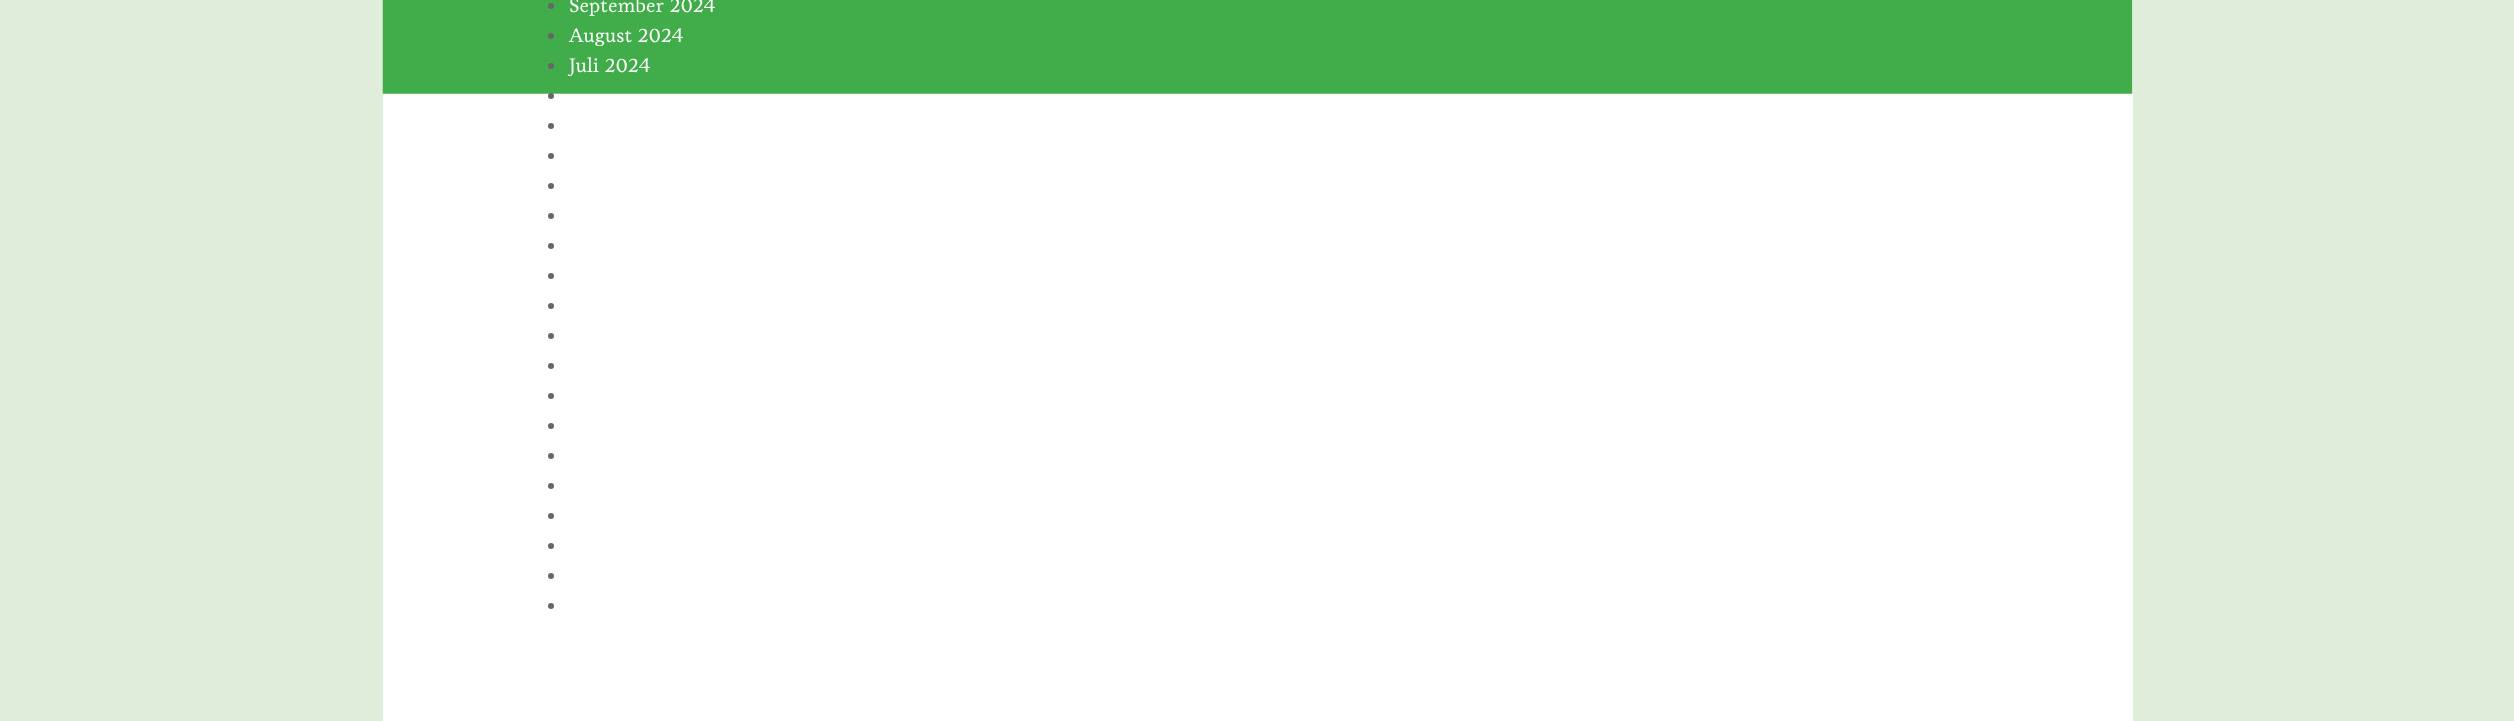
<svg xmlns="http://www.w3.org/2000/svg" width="2514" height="721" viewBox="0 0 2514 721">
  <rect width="100%" height="100%" fill="rgb(224,237,219)"/>
  <rect x="383" y="0" width="1750" height="721" fill="rgb(255,255,255)"/>
  <image x="382" y="0" width="1751" height="94" href="pic1.png"/>
  <circle cx="551" cy="6" r="3" fill="rgb(102,102,102)"/>
  <text x="569" y="12" font-family="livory" font-size="20" fill="rgb(255,255,255)">September 2024</text>
  <circle cx="551" cy="36" r="3" fill="rgb(102,102,102)"/>
  <text x="569" y="42" font-family="livory" font-size="20" fill="rgb(255,255,255)">August 2024</text>
  <circle cx="551" cy="66" r="3" fill="rgb(102,102,102)"/>
  <text x="569" y="72" font-family="livory" font-size="20" fill="rgb(255,255,255)">Juli 2024</text>
  <circle cx="551" cy="96" r="3" fill="rgb(102,102,102)"/>
  <circle cx="551" cy="126" r="3" fill="rgb(102,102,102)"/>
  <circle cx="551" cy="156" r="3" fill="rgb(102,102,102)"/>
  <circle cx="551" cy="186" r="3" fill="rgb(102,102,102)"/>
  <circle cx="551" cy="216" r="3" fill="rgb(102,102,102)"/>
  <circle cx="551" cy="246" r="3" fill="rgb(102,102,102)"/>
  <circle cx="551" cy="276" r="3" fill="rgb(102,102,102)"/>
  <circle cx="551" cy="306" r="3" fill="rgb(102,102,102)"/>
  <circle cx="551" cy="336" r="3" fill="rgb(102,102,102)"/>
  <circle cx="551" cy="366" r="3" fill="rgb(102,102,102)"/>
  <circle cx="551" cy="396" r="3" fill="rgb(102,102,102)"/>
  <circle cx="551" cy="426" r="3" fill="rgb(102,102,102)"/>
  <circle cx="551" cy="456" r="3" fill="rgb(102,102,102)"/>
  <circle cx="551" cy="486" r="3" fill="rgb(102,102,102)"/>
  <circle cx="551" cy="516" r="3" fill="rgb(102,102,102)"/>
  <circle cx="551" cy="546" r="3" fill="rgb(102,102,102)"/>
  <circle cx="551" cy="576" r="3" fill="rgb(102,102,102)"/>
  <circle cx="551" cy="606" r="3" fill="rgb(102,102,102)"/>
</svg>
